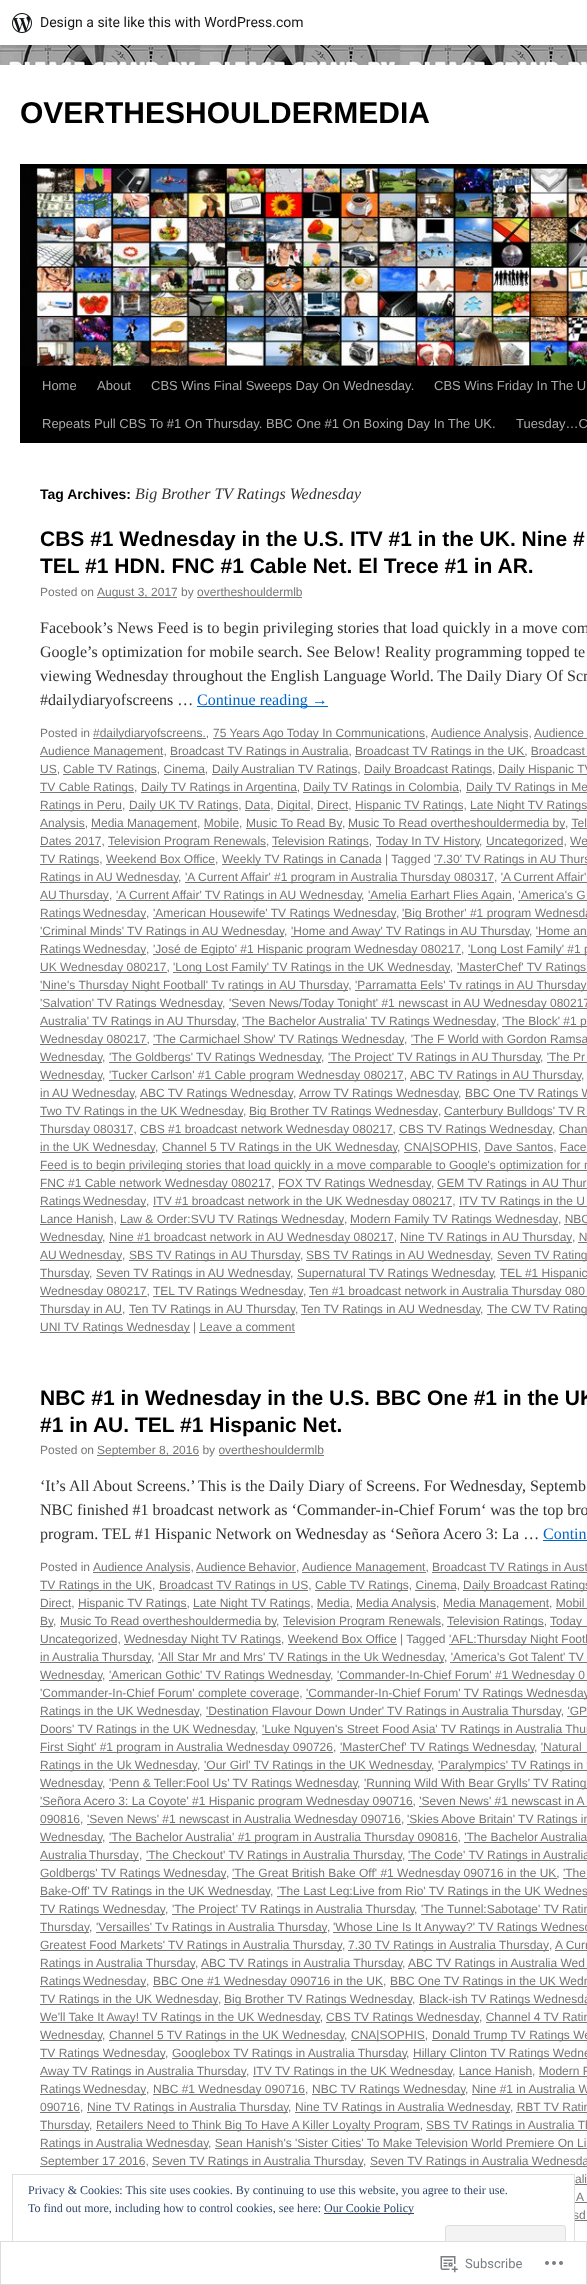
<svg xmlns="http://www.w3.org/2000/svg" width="587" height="2285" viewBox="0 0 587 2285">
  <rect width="100%" height="100%" fill="rgb(255,255,255)"/>
  <image x="0" y="45" width="587" height="20" href="pic1.png"/>
  <rect x="0" y="1" width="587" height="45" fill="rgba(0,0,0,0.05)" filter="blur(1px)"/>
  <path d="M1 45V48H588V3H587V45Z" fill="rgba(0,0,0,0.08)"/>
  <rect x="0" y="0" width="587" height="45" fill="rgb(255,255,255)"/>
  <image x="12" y="13" width="20" height="20" href="pic2.png"/>
  <text x="40" y="27" font-family="Roboto" font-size="14" fill="rgb(23,23,23)">Design a site like this with WordPress.com</text>
  <text x="20" y="123" font-family="Liberation Sans" font-size="30" font-weight="bold" fill="rgb(0,0,0)">OVERTHESHOULDERMEDIA</text>
  <rect x="20" y="164" width="567" height="4" fill="rgb(0,0,0)"/>
  <rect x="20" y="366" width="567" height="77" fill="rgb(0,0,0)"/>
  <image x="20" y="168" width="567" height="198" href="pic3.png"/>
  <g font-family="Liberation Sans" font-size="13" fill="rgb(170,170,170)">
    <text x="42" y="390">Home</text>
    <text x="97" y="390">About</text>
    <text x="151" y="390">CBS Wins Final Sweeps Day On Wednesday.</text>
    <text x="434" y="390">CBS Wins Friday In The U</text>
    <text x="42" y="428">Repeats Pull CBS To #1 On Thursday. BBC One #1 On Boxing Day In The UK.</text>
    <text x="516" y="428">Tuesday…C</text>
  </g>
  <text x="40" y="499" font-family="Liberation Sans" font-size="14" font-weight="bold" fill="rgb(0,0,0)">Tag Archives:</text>
  <text x="135" y="499" font-family="Liberation Serif" font-size="16" font-style="italic" fill="rgb(51,51,51)">Big Brother TV Ratings Wednesday</text>
  <g font-family="Liberation Sans" font-size="21" font-weight="bold" fill="rgb(0,0,0)">
    <text>
      <tspan x="40" y="546">CBS #1 Wednesday in the U.S. ITV #1 in the UK. Nine #</tspan>
      <tspan x="40" y="573">TEL #1 HDN. FNC #1 Cable Net. El Trece #1 in AR.</tspan>
    </text>
  </g>
  <text x="40" y="596" font-family="Liberation Sans" font-size="12" fill="rgb(119,119,119)">Posted on</text>
  <rect x="97" y="597" width="80" height="1" fill="rgb(119,119,119)"/>
  <text x="97" y="596" font-family="Liberation Sans" font-size="12" fill="rgb(119,119,119)">August 3, 2017 by overtheshouldermlb</text>
  <rect x="197" y="597" width="105" height="1" fill="rgb(119,119,119)"/>
  <g font-family="Liberation Serif" font-size="16" fill="rgb(51,51,51)">
    <text>
      <tspan x="40" y="633">Facebook’s News Feed is to begin privileging stories that load quickly in a move com</tspan>
      <tspan x="40" y="657">Google’s optimization for mobile search. See Below! Reality programming topped te</tspan>
      <tspan x="40" y="681">viewing Wednesday throughout the English Language World. The Daily Diary Of Scr</tspan>
      <tspan x="40" y="705">#dailydiaryofscreens …</tspan>
    </text>
  </g>
  <rect x="197" y="706" width="131" height="1" fill="rgb(0,102,204)"/>
  <text x="197" y="705" font-family="Liberation Serif" font-size="16" fill="rgb(0,102,204)">Continue reading →</text>
  <text x="40" y="737" font-family="Liberation Sans" font-size="12" fill="rgb(119,119,119)">Posted in</text>
  <rect x="93" y="738" width="113" height="1" fill="rgb(119,119,119)"/>
  <text x="93" y="737" font-family="Liberation Sans" font-size="12" fill="rgb(119,119,119)">#dailydiaryofscreens.,</text>
  <rect x="213" y="738" width="212" height="1" fill="rgb(119,119,119)"/>
  <text x="213" y="737" font-family="Liberation Sans" font-size="12" fill="rgb(119,119,119)">75 Years Ago Today In Communications,</text>
  <rect x="431" y="738" width="97" height="1" fill="rgb(119,119,119)"/>
  <g font-family="Liberation Sans" font-size="12" fill="rgb(119,119,119)">
    <text x="431" y="737">Audience Analysis,</text>
    <text x="534" y="737" word-spacing="-1">Audience</text>
  </g>
  <rect x="534" y="738" width="53" height="1" fill="rgb(119,119,119)"/>
  <rect x="40" y="756" width="123" height="1" fill="rgb(119,119,119)"/>
  <text x="40" y="755" font-family="Liberation Sans" font-size="12" fill="rgb(119,119,119)">Audience Management,</text>
  <rect x="170" y="756" width="179" height="1" fill="rgb(119,119,119)"/>
  <text x="170" y="755" font-family="Liberation Sans" font-size="12" fill="rgb(119,119,119)">Broadcast TV Ratings in Australia,</text>
  <rect x="355" y="756" width="170" height="1" fill="rgb(119,119,119)"/>
  <text x="355" y="755" font-family="Liberation Sans" font-size="12" fill="rgb(119,119,119)">Broadcast TV Ratings in the UK, Broadcast</text>
  <rect x="531" y="756" width="56" height="1" fill="rgb(119,119,119)"/>
  <rect x="40" y="774" width="17" height="1" fill="rgb(119,119,119)"/>
  <text x="40" y="773" font-family="Liberation Sans" font-size="12" fill="rgb(119,119,119)">US,</text>
  <rect x="63" y="774" width="94" height="1" fill="rgb(119,119,119)"/>
  <text x="63" y="773" font-family="Liberation Sans" font-size="12" fill="rgb(119,119,119)">Cable TV Ratings, Cinema,</text>
  <rect x="164" y="774" width="41" height="1" fill="rgb(119,119,119)"/>
  <rect x="212" y="774" width="145" height="1" fill="rgb(119,119,119)"/>
  <text x="212" y="773" font-family="Liberation Sans" font-size="12" fill="rgb(119,119,119)">Daily Australian TV Ratings,</text>
  <rect x="364" y="774" width="128" height="1" fill="rgb(119,119,119)"/>
  <text x="364" y="773" font-family="Liberation Sans" font-size="12" fill="rgb(119,119,119)">Daily Broadcast Ratings,</text>
  <rect x="498" y="774" width="89" height="1" fill="rgb(119,119,119)"/>
  <text x="498" y="773" font-family="Liberation Sans" font-size="12" fill="rgb(119,119,119)">Daily Hispanic TV</text>
  <rect x="40" y="792" width="94" height="1" fill="rgb(119,119,119)"/>
  <text x="40" y="791" font-family="Liberation Sans" font-size="12" fill="rgb(119,119,119)">TV Cable Ratings,</text>
  <rect x="141" y="792" width="156" height="1" fill="rgb(119,119,119)"/>
  <text x="141" y="791" font-family="Liberation Sans" font-size="12" fill="rgb(119,119,119)">Daily TV Ratings in Argentina,</text>
  <rect x="303" y="792" width="156" height="1" fill="rgb(119,119,119)"/>
  <text x="303" y="791" font-family="Liberation Sans" font-size="12" fill="rgb(119,119,119)">Daily TV Ratings in Colombia,</text>
  <rect x="466" y="792" width="121" height="1" fill="rgb(119,119,119)"/>
  <text x="466" y="791" font-family="Liberation Sans" font-size="12" fill="rgb(119,119,119)">Daily TV Ratings in Me</text>
  <rect x="40" y="810" width="82" height="1" fill="rgb(119,119,119)"/>
  <text x="40" y="809" font-family="Liberation Sans" font-size="12" fill="rgb(119,119,119)">Ratings in Peru,</text>
  <rect x="129" y="810" width="109" height="1" fill="rgb(119,119,119)"/>
  <text x="129" y="809" font-family="Liberation Sans" font-size="12" fill="rgb(119,119,119)">Daily UK TV Ratings, Data,</text>
  <rect x="245" y="810" width="25" height="1" fill="rgb(119,119,119)"/>
  <rect x="277" y="810" width="33" height="1" fill="rgb(119,119,119)"/>
  <text x="277" y="809" font-family="Liberation Sans" font-size="12" fill="rgb(119,119,119)">Digital, Direct,</text>
  <rect x="317" y="810" width="31" height="1" fill="rgb(119,119,119)"/>
  <rect x="355" y="810" width="108" height="1" fill="rgb(119,119,119)"/>
  <text x="355" y="809" font-family="Liberation Sans" font-size="12" fill="rgb(119,119,119)">Hispanic TV Ratings,</text>
  <rect x="470" y="810" width="117" height="1" fill="rgb(119,119,119)"/>
  <text x="470" y="809" font-family="Liberation Sans" font-size="12" fill="rgb(119,119,119)">Late Night TV Ratings</text>
  <rect x="40" y="828" width="45" height="1" fill="rgb(119,119,119)"/>
  <text x="40" y="827" font-family="Liberation Sans" font-size="12" fill="rgb(119,119,119)">Analysis,</text>
  <rect x="91" y="828" width="106" height="1" fill="rgb(119,119,119)"/>
  <text x="91" y="827" font-family="Liberation Sans" font-size="12" fill="rgb(119,119,119)">Media Management, Mobile,</text>
  <rect x="204" y="828" width="35" height="1" fill="rgb(119,119,119)"/>
  <rect x="246" y="828" width="96" height="1" fill="rgb(119,119,119)"/>
  <g font-family="Liberation Sans" font-size="12" fill="rgb(119,119,119)">
    <text x="246" y="827">Music To Read By</text>
    <text x="342" y="827">,</text>
  </g>
  <rect x="348" y="828" width="217" height="1" fill="rgb(119,119,119)"/>
  <g font-family="Liberation Sans" font-size="12" fill="rgb(119,119,119)">
    <text x="348" y="827">Music To Read overtheshouldermedia by</text>
    <text x="565" y="827">, Tel</text>
  </g>
  <rect x="571" y="828" width="16" height="1" fill="rgb(119,119,119)"/>
  <rect x="40" y="846" width="61" height="1" fill="rgb(119,119,119)"/>
  <text x="40" y="845" font-family="Liberation Sans" font-size="12" fill="rgb(119,119,119)">Dates 2017,</text>
  <rect x="108" y="846" width="158" height="1" fill="rgb(119,119,119)"/>
  <text x="108" y="845" font-family="Liberation Sans" font-size="12" fill="rgb(119,119,119)">Television Program Renewals,</text>
  <rect x="272" y="846" width="97" height="1" fill="rgb(119,119,119)"/>
  <text x="272" y="845" font-family="Liberation Sans" font-size="12" fill="rgb(119,119,119)">Television Ratings,</text>
  <rect x="376" y="846" width="103" height="1" fill="rgb(119,119,119)"/>
  <g font-family="Liberation Sans" font-size="12" fill="rgb(119,119,119)">
    <text x="376" y="845">Today In TV History</text>
    <text x="479" y="845">,</text>
  </g>
  <rect x="486" y="846" width="77" height="1" fill="rgb(119,119,119)"/>
  <text x="486" y="845" font-family="Liberation Sans" font-size="12" fill="rgb(119,119,119)">Uncategorized, We</text>
  <rect x="570" y="846" width="17" height="1" fill="rgb(119,119,119)"/>
  <rect x="40" y="864" width="59" height="1" fill="rgb(119,119,119)"/>
  <text x="40" y="863" font-family="Liberation Sans" font-size="12" fill="rgb(119,119,119)">TV Ratings, Weekend Box Office,</text>
  <rect x="106" y="864" width="109" height="1" fill="rgb(119,119,119)"/>
  <rect x="222" y="864" width="159" height="1" fill="rgb(119,119,119)"/>
  <text x="222" y="863" font-family="Liberation Sans" font-size="12" fill="rgb(119,119,119)">Weekly TV Ratings in Canada | Tagged</text>
  <rect x="434" y="864" width="153" height="1" fill="rgb(119,119,119)"/>
  <text x="434" y="863" font-family="Liberation Sans" font-size="12" fill="rgb(119,119,119)">'7.30' TV Ratings in AU Thurs</text>
  <rect x="40" y="882" width="138" height="1" fill="rgb(119,119,119)"/>
  <g font-family="Liberation Sans" font-size="12" fill="rgb(119,119,119)">
    <text x="40" y="881">Ratings in AU Wednesday</text>
    <text x="178" y="881">,</text>
  </g>
  <rect x="185" y="882" width="309" height="1" fill="rgb(119,119,119)"/>
  <text x="185" y="881" font-family="Liberation Sans" font-size="12" fill="rgb(119,119,119)">'A Current Affair' #1 program in Australia Thursday 080317, 'A Current Affair'</text>
  <rect x="501" y="882" width="86" height="1" fill="rgb(119,119,119)"/>
  <rect x="40" y="900" width="69" height="1" fill="rgb(119,119,119)"/>
  <g font-family="Liberation Sans" font-size="12" fill="rgb(119,119,119)">
    <text x="40" y="899" word-spacing="-1">AU Thursday</text>
    <text x="109" y="899">,</text>
  </g>
  <rect x="116" y="900" width="245" height="1" fill="rgb(119,119,119)"/>
  <g font-family="Liberation Sans" font-size="12" fill="rgb(119,119,119)">
    <text x="116" y="899">'A Current Affair' TV Ratings in AU Wednesday</text>
    <text x="361" y="899">,</text>
  </g>
  <rect x="368" y="900" width="144" height="1" fill="rgb(119,119,119)"/>
  <text x="368" y="899" font-family="Liberation Sans" font-size="12" fill="rgb(119,119,119)">'Amelia Earhart Flies Again, 'America's G</text>
  <rect x="518" y="900" width="69" height="1" fill="rgb(119,119,119)"/>
  <rect x="40" y="918" width="106" height="1" fill="rgb(119,119,119)"/>
  <g font-family="Liberation Sans" font-size="12" fill="rgb(119,119,119)">
    <text x="40" y="917" word-spacing="-1">Ratings Wednesday</text>
    <text x="146" y="917">,</text>
  </g>
  <rect x="153" y="918" width="243" height="1" fill="rgb(119,119,119)"/>
  <g font-family="Liberation Sans" font-size="12" fill="rgb(119,119,119)">
    <text x="153" y="917">'American Housewife' TV Ratings Wednesday</text>
    <text x="396" y="917">,</text>
  </g>
  <rect x="402" y="918" width="185" height="1" fill="rgb(119,119,119)"/>
  <text x="402" y="917" font-family="Liberation Sans" font-size="12" fill="rgb(119,119,119)">'Big Brother' #1 program Wednesda</text>
  <rect x="40" y="936" width="244" height="1" fill="rgb(119,119,119)"/>
  <g font-family="Liberation Sans" font-size="12" fill="rgb(119,119,119)">
    <text x="40" y="935">'Criminal Minds' TV Ratings in AU Wednesday</text>
    <text x="284" y="935">,</text>
  </g>
  <rect x="291" y="936" width="238" height="1" fill="rgb(119,119,119)"/>
  <g font-family="Liberation Sans" font-size="12" fill="rgb(119,119,119)">
    <text x="291" y="935">'Home and Away' TV Ratings in AU Thursday</text>
    <text x="529" y="935">, 'Home an</text>
  </g>
  <rect x="536" y="936" width="51" height="1" fill="rgb(119,119,119)"/>
  <rect x="40" y="954" width="106" height="1" fill="rgb(119,119,119)"/>
  <g font-family="Liberation Sans" font-size="12" fill="rgb(119,119,119)">
    <text x="40" y="953" word-spacing="-1">Ratings Wednesday</text>
    <text x="146" y="953">,</text>
  </g>
  <rect x="153" y="954" width="308" height="1" fill="rgb(119,119,119)"/>
  <text x="153" y="953" font-family="Liberation Sans" font-size="12" fill="rgb(119,119,119)">'José de Egipto' #1 Hispanic program Wednesday 080217,</text>
  <rect x="468" y="954" width="119" height="1" fill="rgb(119,119,119)"/>
  <text x="468" y="953" font-family="Liberation Sans" font-size="12" fill="rgb(119,119,119)">'Long Lost Family' #1 p</text>
  <rect x="40" y="972" width="127" height="1" fill="rgb(119,119,119)"/>
  <text x="40" y="971" font-family="Liberation Sans" font-size="12" fill="rgb(119,119,119)">UK Wednesday 080217,</text>
  <rect x="173" y="972" width="277" height="1" fill="rgb(119,119,119)"/>
  <text x="173" y="971" font-family="Liberation Sans" font-size="12" fill="rgb(119,119,119)">'Long Lost Family' TV Ratings in the UK Wednesday,</text>
  <rect x="457" y="972" width="130" height="1" fill="rgb(119,119,119)"/>
  <text x="457" y="971" font-family="Liberation Sans" font-size="12" fill="rgb(119,119,119)">'MasterChef' TV Ratings</text>
  <rect x="40" y="990" width="308" height="1" fill="rgb(119,119,119)"/>
  <text x="40" y="989" font-family="Liberation Sans" font-size="12" fill="rgb(119,119,119)">'Nine's Thursday Night Football' Tv ratings in AU Thursday,</text>
  <rect x="355" y="990" width="232" height="1" fill="rgb(119,119,119)"/>
  <text x="355" y="989" font-family="Liberation Sans" font-size="12" fill="rgb(119,119,119)">'Parramatta Eels' Tv ratings in AU Thursday</text>
  <rect x="40" y="1008" width="182" height="1" fill="rgb(119,119,119)"/>
  <g font-family="Liberation Sans" font-size="12" fill="rgb(119,119,119)">
    <text x="40" y="1007">'Salvation' TV Ratings Wednesday</text>
    <text x="222" y="1007">,</text>
  </g>
  <rect x="229" y="1008" width="358" height="1" fill="rgb(119,119,119)"/>
  <text x="229" y="1007" font-family="Liberation Sans" font-size="12" fill="rgb(119,119,119)">'Seven News/Today Tonight' #1 newscast in AU Wednesday 080217</text>
  <rect x="40" y="1026" width="196" height="1" fill="rgb(119,119,119)"/>
  <g font-family="Liberation Sans" font-size="12" fill="rgb(119,119,119)">
    <text x="40" y="1025">Australia' TV Ratings in AU Thursday</text>
    <text x="236" y="1025">,</text>
  </g>
  <rect x="242" y="1026" width="254" height="1" fill="rgb(119,119,119)"/>
  <g font-family="Liberation Sans" font-size="12" fill="rgb(119,119,119)">
    <text x="242" y="1025">'The Bachelor Australia' TV Ratings Wednesday</text>
    <text x="496" y="1025">,</text>
  </g>
  <rect x="502" y="1026" width="85" height="1" fill="rgb(119,119,119)"/>
  <text x="502" y="1025" font-family="Liberation Sans" font-size="12" fill="rgb(119,119,119)">'The Block' #1 p</text>
  <rect x="40" y="1044" width="107" height="1" fill="rgb(119,119,119)"/>
  <text x="40" y="1043" font-family="Liberation Sans" font-size="12" fill="rgb(119,119,119)">Wednesday 080217,</text>
  <rect x="153" y="1044" width="251" height="1" fill="rgb(119,119,119)"/>
  <g font-family="Liberation Sans" font-size="12" fill="rgb(119,119,119)">
    <text x="153" y="1043">'The Carmichael Show' TV Ratings Wednesday</text>
    <text x="404" y="1043">, 'The F World with Gordon Ramsa</text>
  </g>
  <rect x="411" y="1044" width="176" height="1" fill="rgb(119,119,119)"/>
  <rect x="40" y="1062" width="62" height="1" fill="rgb(119,119,119)"/>
  <text x="40" y="1061" font-family="Liberation Sans" font-size="12" fill="rgb(119,119,119)">Wednesday</text>
  <rect x="109" y="1062" width="212" height="1" fill="rgb(119,119,119)"/>
  <text x="109" y="1061" font-family="Liberation Sans" font-size="12" fill="rgb(119,119,119)">'The Goldbergs' TV Ratings Wednesday</text>
  <rect x="328" y="1062" width="212" height="1" fill="rgb(119,119,119)"/>
  <g font-family="Liberation Sans" font-size="12" fill="rgb(119,119,119)">
    <text x="328" y="1061">'The Project' TV Ratings in AU Thursday</text>
    <text x="540" y="1061">, 'The Pr</text>
  </g>
  <rect x="547" y="1062" width="40" height="1" fill="rgb(119,119,119)"/>
  <g font-family="Liberation Sans" font-size="12" fill="rgb(119,119,119)">
    <text x="102" y="1061">,</text>
    <text x="321" y="1061">,</text>
  </g>
  <rect x="40" y="1080" width="62" height="1" fill="rgb(119,119,119)"/>
  <text x="40" y="1079" font-family="Liberation Sans" font-size="12" fill="rgb(119,119,119)">Wednesday</text>
  <rect x="109" y="1080" width="295" height="1" fill="rgb(119,119,119)"/>
  <text x="109" y="1079" font-family="Liberation Sans" font-size="12" fill="rgb(119,119,119)">'Tucker Carlson' #1 Cable program Wednesday 080217,</text>
  <rect x="410" y="1080" width="171" height="1" fill="rgb(119,119,119)"/>
  <g font-family="Liberation Sans" font-size="12" fill="rgb(119,119,119)">
    <text x="410" y="1079">ABC TV Ratings in AU Thursday</text>
    <text x="102" y="1079">,</text>
    <text x="581" y="1079">,</text>
  </g>
  <rect x="40" y="1098" width="94" height="1" fill="rgb(119,119,119)"/>
  <g font-family="Liberation Sans" font-size="12" fill="rgb(119,119,119)">
    <text x="40" y="1097">in AU Wednesday</text>
    <text x="134" y="1097">,</text>
  </g>
  <rect x="140" y="1098" width="153" height="1" fill="rgb(119,119,119)"/>
  <g font-family="Liberation Sans" font-size="12" fill="rgb(119,119,119)">
    <text x="140" y="1097">ABC TV Ratings Wednesday</text>
    <text x="293" y="1097">,</text>
  </g>
  <rect x="299" y="1098" width="159" height="1" fill="rgb(119,119,119)"/>
  <g font-family="Liberation Sans" font-size="12" fill="rgb(119,119,119)">
    <text x="299" y="1097">Arrow TV Ratings Wednesday</text>
    <text x="458" y="1097">,</text>
  </g>
  <rect x="465" y="1098" width="122" height="1" fill="rgb(119,119,119)"/>
  <text x="465" y="1097" font-family="Liberation Sans" font-size="12" fill="rgb(119,119,119)">BBC One TV Ratings W</text>
  <rect x="40" y="1116" width="203" height="1" fill="rgb(119,119,119)"/>
  <g font-family="Liberation Sans" font-size="12" fill="rgb(119,119,119)">
    <text x="40" y="1115">Two TV Ratings in the UK Wednesday</text>
    <text x="243" y="1115">,</text>
  </g>
  <rect x="249" y="1116" width="189" height="1" fill="rgb(119,119,119)"/>
  <g font-family="Liberation Sans" font-size="12" fill="rgb(119,119,119)">
    <text x="249" y="1115">Big Brother TV Ratings Wednesday</text>
    <text x="438" y="1115">,</text>
  </g>
  <rect x="444" y="1116" width="143" height="1" fill="rgb(119,119,119)"/>
  <text x="444" y="1115" font-family="Liberation Sans" font-size="12" fill="rgb(119,119,119)">Canterbury Bulldogs' TV R</text>
  <rect x="40" y="1134" width="93" height="1" fill="rgb(119,119,119)"/>
  <text x="40" y="1133" font-family="Liberation Sans" font-size="12" fill="rgb(119,119,119)">Thursday 080317,</text>
  <rect x="140" y="1134" width="253" height="1" fill="rgb(119,119,119)"/>
  <text x="140" y="1133" font-family="Liberation Sans" font-size="12" fill="rgb(119,119,119)">CBS #1 broadcast network Wednesday 080217,</text>
  <rect x="399" y="1134" width="153" height="1" fill="rgb(119,119,119)"/>
  <g font-family="Liberation Sans" font-size="12" fill="rgb(119,119,119)">
    <text x="399" y="1133">CBS TV Ratings Wednesday</text>
    <text x="552" y="1133">, Chan</text>
  </g>
  <rect x="559" y="1134" width="28" height="1" fill="rgb(119,119,119)"/>
  <rect x="40" y="1152" width="115" height="1" fill="rgb(119,119,119)"/>
  <g font-family="Liberation Sans" font-size="12" fill="rgb(119,119,119)">
    <text x="40" y="1151">in the UK Wednesday</text>
    <text x="155" y="1151">,</text>
  </g>
  <rect x="162" y="1152" width="235" height="1" fill="rgb(119,119,119)"/>
  <g font-family="Liberation Sans" font-size="12" fill="rgb(119,119,119)">
    <text x="162" y="1151">Channel 5 TV Ratings in the UK Wednesday</text>
    <text x="397" y="1151">,</text>
  </g>
  <rect x="404" y="1152" width="74" height="1" fill="rgb(119,119,119)"/>
  <text x="404" y="1151" font-family="Liberation Sans" font-size="12" fill="rgb(119,119,119)">CNA|SOPHIS, Dave Santos, Face</text>
  <rect x="484" y="1152" width="69" height="1" fill="rgb(119,119,119)"/>
  <rect x="560" y="1152" width="27" height="1" fill="rgb(119,119,119)"/>
  <rect x="40" y="1170" width="547" height="1" fill="rgb(119,119,119)"/>
  <text x="40" y="1169" font-family="Liberation Sans" font-size="12" fill="rgb(119,119,119)">Feed is to begin privileging stories that load quickly in a move comparable to Google's optimization for m</text>
  <rect x="40" y="1188" width="231" height="1" fill="rgb(119,119,119)"/>
  <text x="40" y="1187" font-family="Liberation Sans" font-size="12" fill="rgb(119,119,119)">FNC #1 Cable network Wednesday 080217,</text>
  <rect x="278" y="1188" width="153" height="1" fill="rgb(119,119,119)"/>
  <g font-family="Liberation Sans" font-size="12" fill="rgb(119,119,119)">
    <text x="278" y="1187">FOX TV Ratings Wednesday</text>
    <text x="431" y="1187">,</text>
  </g>
  <rect x="437" y="1188" width="150" height="1" fill="rgb(119,119,119)"/>
  <text x="437" y="1187" font-family="Liberation Sans" font-size="12" fill="rgb(119,119,119)">GEM TV Ratings in AU Thur</text>
  <rect x="40" y="1206" width="106" height="1" fill="rgb(119,119,119)"/>
  <g font-family="Liberation Sans" font-size="12" fill="rgb(119,119,119)">
    <text x="40" y="1205" word-spacing="-1">Ratings Wednesday</text>
    <text x="146" y="1205">,</text>
  </g>
  <rect x="153" y="1206" width="299" height="1" fill="rgb(119,119,119)"/>
  <text x="153" y="1205" font-family="Liberation Sans" font-size="12" fill="rgb(119,119,119)">ITV #1 broadcast network in the UK Wednesday 080217,</text>
  <rect x="459" y="1206" width="128" height="1" fill="rgb(119,119,119)"/>
  <text x="459" y="1205" font-family="Liberation Sans" font-size="12" fill="rgb(119,119,119)">ITV TV Ratings in the U</text>
  <rect x="40" y="1224" width="73" height="1" fill="rgb(119,119,119)"/>
  <text x="40" y="1223" font-family="Liberation Sans" font-size="12" fill="rgb(119,119,119)">Lance Hanish,</text>
  <rect x="120" y="1224" width="224" height="1" fill="rgb(119,119,119)"/>
  <g font-family="Liberation Sans" font-size="12" fill="rgb(119,119,119)">
    <text x="120" y="1223">Law &amp; Order:SVU TV Ratings Wednesday</text>
    <text x="344" y="1223">,</text>
  </g>
  <rect x="350" y="1224" width="208" height="1" fill="rgb(119,119,119)"/>
  <g font-family="Liberation Sans" font-size="12" fill="rgb(119,119,119)">
    <text x="350" y="1223">Modern Family TV Ratings Wednesday</text>
    <text x="558" y="1223">, NBC</text>
  </g>
  <rect x="564" y="1224" width="23" height="1" fill="rgb(119,119,119)"/>
  <rect x="40" y="1242" width="62" height="1" fill="rgb(119,119,119)"/>
  <text x="40" y="1241" font-family="Liberation Sans" font-size="12" fill="rgb(119,119,119)">Wednesday</text>
  <rect x="109" y="1242" width="285" height="1" fill="rgb(119,119,119)"/>
  <text x="109" y="1241" font-family="Liberation Sans" font-size="12" fill="rgb(119,119,119)">Nine #1 broadcast network in AU Wednesday 080217,</text>
  <rect x="400" y="1242" width="172" height="1" fill="rgb(119,119,119)"/>
  <g font-family="Liberation Sans" font-size="12" fill="rgb(119,119,119)">
    <text x="400" y="1241">Nine TV Ratings in AU Thursday</text>
    <text x="572" y="1241">, N</text>
  </g>
  <rect x="578" y="1242" width="9" height="1" fill="rgb(119,119,119)"/>
  <text x="102" y="1241" font-family="Liberation Sans" font-size="12" fill="rgb(119,119,119)">,</text>
  <rect x="40" y="1260" width="82" height="1" fill="rgb(119,119,119)"/>
  <g font-family="Liberation Sans" font-size="12" fill="rgb(119,119,119)">
    <text x="40" y="1259" word-spacing="-1">AU Wednesday</text>
    <text x="122" y="1259">,</text>
  </g>
  <rect x="129" y="1260" width="171" height="1" fill="rgb(119,119,119)"/>
  <g font-family="Liberation Sans" font-size="12" fill="rgb(119,119,119)">
    <text x="129" y="1259">SBS TV Ratings in AU Thursday</text>
    <text x="300" y="1259">,</text>
  </g>
  <rect x="306" y="1260" width="184" height="1" fill="rgb(119,119,119)"/>
  <g font-family="Liberation Sans" font-size="12" fill="rgb(119,119,119)">
    <text x="306" y="1259">SBS TV Ratings in AU Wednesday</text>
    <text x="490" y="1259">,</text>
  </g>
  <rect x="497" y="1260" width="90" height="1" fill="rgb(119,119,119)"/>
  <text x="497" y="1259" font-family="Liberation Sans" font-size="12" fill="rgb(119,119,119)">Seven TV Rating</text>
  <rect x="40" y="1278" width="49" height="1" fill="rgb(119,119,119)"/>
  <g font-family="Liberation Sans" font-size="12" fill="rgb(119,119,119)">
    <text x="40" y="1277">Thursday</text>
    <text x="89" y="1277">,</text>
  </g>
  <rect x="96" y="1278" width="194" height="1" fill="rgb(119,119,119)"/>
  <g font-family="Liberation Sans" font-size="12" fill="rgb(119,119,119)">
    <text x="96" y="1277">Seven TV Ratings in AU Wednesday</text>
    <text x="290" y="1277">,</text>
  </g>
  <rect x="297" y="1278" width="196" height="1" fill="rgb(119,119,119)"/>
  <g font-family="Liberation Sans" font-size="12" fill="rgb(119,119,119)">
    <text x="297" y="1277">Supernatural TV Ratings Wednesday</text>
    <text x="493" y="1277">,</text>
  </g>
  <rect x="500" y="1278" width="87" height="1" fill="rgb(119,119,119)"/>
  <text x="500" y="1277" font-family="Liberation Sans" font-size="12" fill="rgb(119,119,119)">TEL #1 Hispanic</text>
  <rect x="40" y="1296" width="107" height="1" fill="rgb(119,119,119)"/>
  <text x="40" y="1295" font-family="Liberation Sans" font-size="12" fill="rgb(119,119,119)">Wednesday 080217,</text>
  <rect x="153" y="1296" width="150" height="1" fill="rgb(119,119,119)"/>
  <g font-family="Liberation Sans" font-size="12" fill="rgb(119,119,119)">
    <text x="153" y="1295">TEL TV Ratings Wednesday</text>
    <text x="303" y="1295">,</text>
  </g>
  <rect x="309" y="1296" width="278" height="1" fill="rgb(119,119,119)"/>
  <text x="309" y="1295" font-family="Liberation Sans" font-size="12" fill="rgb(119,119,119)">Ten #1 broadcast network in Australia Thursday 080</text>
  <rect x="40" y="1314" width="82" height="1" fill="rgb(119,119,119)"/>
  <text x="40" y="1313" font-family="Liberation Sans" font-size="12" fill="rgb(119,119,119)">Thursday in AU,</text>
  <rect x="129" y="1314" width="166" height="1" fill="rgb(119,119,119)"/>
  <g font-family="Liberation Sans" font-size="12" fill="rgb(119,119,119)">
    <text x="129" y="1313">Ten TV Ratings in AU Thursday</text>
    <text x="295" y="1313">,</text>
  </g>
  <rect x="301" y="1314" width="179" height="1" fill="rgb(119,119,119)"/>
  <g font-family="Liberation Sans" font-size="12" fill="rgb(119,119,119)">
    <text x="301" y="1313">Ten TV Ratings in AU Wednesday</text>
    <text x="480" y="1313">,</text>
  </g>
  <rect x="487" y="1314" width="100" height="1" fill="rgb(119,119,119)"/>
  <text x="487" y="1313" font-family="Liberation Sans" font-size="12" fill="rgb(119,119,119)">The CW TV Rating</text>
  <rect x="40" y="1332" width="150" height="1" fill="rgb(119,119,119)"/>
  <text x="40" y="1331" font-family="Liberation Sans" font-size="12" fill="rgb(119,119,119)">UNI TV Ratings Wednesday | Leave a comment</text>
  <rect x="199" y="1332" width="96" height="1" fill="rgb(119,119,119)"/>
  <g font-family="Liberation Sans" font-size="21" font-weight="bold" fill="rgb(0,0,0)">
    <text>
      <tspan x="40" y="1405">NBC #1 in Wednesday in the U.S. BBC One #1 in the UK</tspan>
      <tspan x="40" y="1432">#1 in AU. TEL #1 Hispanic Net.</tspan>
    </text>
  </g>
  <text x="40" y="1454" font-family="Liberation Sans" font-size="12" fill="rgb(119,119,119)">Posted on</text>
  <rect x="97" y="1455" width="102" height="1" fill="rgb(119,119,119)"/>
  <text x="97" y="1454" font-family="Liberation Sans" font-size="12" fill="rgb(119,119,119)">September 8, 2016 by overtheshouldermlb</text>
  <rect x="219" y="1455" width="105" height="1" fill="rgb(119,119,119)"/>
  <g font-family="Liberation Serif" font-size="16" fill="rgb(51,51,51)">
    <text>
      <tspan x="40" y="1491">‘It’s All About Screens.’ This is the Daily Diary of Screens. For Wednesday, Septemb</tspan>
      <tspan x="40" y="1515">NBC finished #1 broadcast network as ‘Commander-in-Chief Forum‘ was the top bro</tspan>
      <tspan x="40" y="1539">program. TEL #1 Hispanic Network on Wednesday as ‘Señora Acero 3: La …</tspan>
    </text>
  </g>
  <text x="543" y="1539" font-family="Liberation Serif" font-size="16" fill="rgb(0,102,204)">Contin</text>
  <rect x="543" y="1540" width="44" height="1" fill="rgb(0,102,204)"/>
  <text x="40" y="1571" font-family="Liberation Sans" font-size="12" fill="rgb(119,119,119)">Posted in</text>
  <rect x="93" y="1572" width="97" height="1" fill="rgb(119,119,119)"/>
  <g font-family="Liberation Sans" font-size="12" fill="rgb(119,119,119)">
    <text x="93" y="1571">Audience Analysis,</text>
    <text x="196" y="1571" word-spacing="-1">Audience Behavior</text>
    <text x="296" y="1571">,</text>
  </g>
  <rect x="196" y="1572" width="100" height="1" fill="rgb(119,119,119)"/>
  <rect x="302" y="1572" width="124" height="1" fill="rgb(119,119,119)"/>
  <text x="302" y="1571" font-family="Liberation Sans" font-size="12" fill="rgb(119,119,119)">Audience Management,</text>
  <rect x="432" y="1572" width="155" height="1" fill="rgb(119,119,119)"/>
  <text x="432" y="1571" font-family="Liberation Sans" font-size="12" fill="rgb(119,119,119)">Broadcast TV Ratings in Aust</text>
  <rect x="40" y="1590" width="112" height="1" fill="rgb(119,119,119)"/>
  <text x="40" y="1589" font-family="Liberation Sans" font-size="12" fill="rgb(119,119,119)">TV Ratings in the UK,</text>
  <rect x="159" y="1590" width="149" height="1" fill="rgb(119,119,119)"/>
  <text x="159" y="1589" font-family="Liberation Sans" font-size="12" fill="rgb(119,119,119)">Broadcast TV Ratings in US,</text>
  <rect x="315" y="1590" width="93" height="1" fill="rgb(119,119,119)"/>
  <text x="315" y="1589" font-family="Liberation Sans" font-size="12" fill="rgb(119,119,119)">Cable TV Ratings, Cinema,</text>
  <rect x="415" y="1590" width="41" height="1" fill="rgb(119,119,119)"/>
  <rect x="463" y="1590" width="124" height="1" fill="rgb(119,119,119)"/>
  <text x="463" y="1589" font-family="Liberation Sans" font-size="12" fill="rgb(119,119,119)">Daily Broadcast Ratings</text>
  <rect x="40" y="1608" width="31" height="1" fill="rgb(119,119,119)"/>
  <text x="40" y="1607" font-family="Liberation Sans" font-size="12" fill="rgb(119,119,119)">Direct,</text>
  <rect x="78" y="1608" width="109" height="1" fill="rgb(119,119,119)"/>
  <text x="78" y="1607" font-family="Liberation Sans" font-size="12" fill="rgb(119,119,119)">Hispanic TV Ratings,</text>
  <rect x="193" y="1608" width="117" height="1" fill="rgb(119,119,119)"/>
  <text x="193" y="1607" font-family="Liberation Sans" font-size="12" fill="rgb(119,119,119)">Late Night TV Ratings, Media,</text>
  <rect x="317" y="1608" width="33" height="1" fill="rgb(119,119,119)"/>
  <rect x="356" y="1608" width="80" height="1" fill="rgb(119,119,119)"/>
  <text x="356" y="1607" font-family="Liberation Sans" font-size="12" fill="rgb(119,119,119)">Media Analysis,</text>
  <rect x="443" y="1608" width="106" height="1" fill="rgb(119,119,119)"/>
  <text x="443" y="1607" font-family="Liberation Sans" font-size="12" fill="rgb(119,119,119)">Media Management, Mobil</text>
  <rect x="556" y="1608" width="31" height="1" fill="rgb(119,119,119)"/>
  <rect x="40" y="1626" width="13" height="1" fill="rgb(119,119,119)"/>
  <g font-family="Liberation Sans" font-size="12" fill="rgb(119,119,119)">
    <text x="40" y="1625">By</text>
    <text x="53" y="1625">,</text>
  </g>
  <rect x="60" y="1626" width="216" height="1" fill="rgb(119,119,119)"/>
  <g font-family="Liberation Sans" font-size="12" fill="rgb(119,119,119)">
    <text x="60" y="1625">Music To Read overtheshouldermedia by</text>
    <text x="276" y="1625">,</text>
  </g>
  <rect x="283" y="1626" width="158" height="1" fill="rgb(119,119,119)"/>
  <text x="283" y="1625" font-family="Liberation Sans" font-size="12" fill="rgb(119,119,119)">Television Program Renewals,</text>
  <rect x="447" y="1626" width="97" height="1" fill="rgb(119,119,119)"/>
  <text x="447" y="1625" font-family="Liberation Sans" font-size="12" fill="rgb(119,119,119)">Television Ratings,</text>
  <rect x="550" y="1626" width="37" height="1" fill="rgb(119,119,119)"/>
  <text x="550" y="1625" font-family="Liberation Sans" font-size="12" fill="rgb(119,119,119)">Today</text>
  <rect x="40" y="1644" width="77" height="1" fill="rgb(119,119,119)"/>
  <text x="40" y="1643" font-family="Liberation Sans" font-size="12" fill="rgb(119,119,119)">Uncategorized,</text>
  <rect x="124" y="1644" width="157" height="1" fill="rgb(119,119,119)"/>
  <text x="124" y="1643" font-family="Liberation Sans" font-size="12" fill="rgb(119,119,119)">Wednesday Night TV Ratings, Weekend Box Office | Tagged</text>
  <rect x="288" y="1644" width="109" height="1" fill="rgb(119,119,119)"/>
  <rect x="449" y="1644" width="138" height="1" fill="rgb(119,119,119)"/>
  <text x="449" y="1643" font-family="Liberation Sans" font-size="12" fill="rgb(119,119,119)">'AFL:Thursday Night Footb</text>
  <rect x="40" y="1662" width="111" height="1" fill="rgb(119,119,119)"/>
  <g font-family="Liberation Sans" font-size="12" fill="rgb(119,119,119)">
    <text x="40" y="1661">in Australia Thursday</text>
    <text x="151" y="1661">,</text>
  </g>
  <rect x="158" y="1662" width="286" height="1" fill="rgb(119,119,119)"/>
  <text x="158" y="1661" font-family="Liberation Sans" font-size="12" fill="rgb(119,119,119)">'All Star Mr and Mrs' TV Ratings in the Uk Wednesday, 'America's Got Talent' TV</text>
  <rect x="450" y="1662" width="137" height="1" fill="rgb(119,119,119)"/>
  <rect x="40" y="1680" width="62" height="1" fill="rgb(119,119,119)"/>
  <text x="40" y="1679" font-family="Liberation Sans" font-size="12" fill="rgb(119,119,119)">Wednesday</text>
  <rect x="109" y="1680" width="221" height="1" fill="rgb(119,119,119)"/>
  <text x="109" y="1679" font-family="Liberation Sans" font-size="12" fill="rgb(119,119,119)">'American Gothic' TV Ratings Wednesday</text>
  <rect x="337" y="1680" width="250" height="1" fill="rgb(119,119,119)"/>
  <g font-family="Liberation Sans" font-size="12" fill="rgb(119,119,119)">
    <text x="337" y="1679">'Commander-In-Chief Forum' #1 Wednesday 0</text>
    <text x="102" y="1679">,</text>
    <text x="330" y="1679">,</text>
  </g>
  <rect x="40" y="1698" width="259" height="1" fill="rgb(119,119,119)"/>
  <text x="40" y="1697" font-family="Liberation Sans" font-size="12" fill="rgb(119,119,119)">'Commander-In-Chief Forum' complete coverage,</text>
  <rect x="306" y="1698" width="281" height="1" fill="rgb(119,119,119)"/>
  <text x="306" y="1697" font-family="Liberation Sans" font-size="12" fill="rgb(119,119,119)">'Commander-In-Chief Forum' TV Ratings Wednesday</text>
  <rect x="40" y="1716" width="159" height="1" fill="rgb(119,119,119)"/>
  <g font-family="Liberation Sans" font-size="12" fill="rgb(119,119,119)">
    <text x="40" y="1715">Ratings in the UK Wednesday</text>
    <text x="199" y="1715">,</text>
  </g>
  <rect x="206" y="1716" width="354" height="1" fill="rgb(119,119,119)"/>
  <text x="206" y="1715" font-family="Liberation Sans" font-size="12" fill="rgb(119,119,119)">'Destination Flavour Down Under' TV Ratings in Australia Thursday, 'GP</text>
  <rect x="567" y="1716" width="20" height="1" fill="rgb(119,119,119)"/>
  <rect x="40" y="1734" width="215" height="1" fill="rgb(119,119,119)"/>
  <g font-family="Liberation Sans" font-size="12" fill="rgb(119,119,119)">
    <text x="40" y="1733">Doors' TV Ratings in the UK Wednesday</text>
    <text x="255" y="1733">,</text>
  </g>
  <rect x="262" y="1734" width="325" height="1" fill="rgb(119,119,119)"/>
  <text x="262" y="1733" font-family="Liberation Sans" font-size="12" fill="rgb(119,119,119)">'Luke Nguyen's Street Food Asia' TV Ratings in Australia Thur</text>
  <rect x="40" y="1752" width="293" height="1" fill="rgb(119,119,119)"/>
  <text x="40" y="1751" font-family="Liberation Sans" font-size="12" fill="rgb(119,119,119)">First Sight' #1 program in Australia Wednesday 090726,</text>
  <rect x="340" y="1752" width="194" height="1" fill="rgb(119,119,119)"/>
  <g font-family="Liberation Sans" font-size="12" fill="rgb(119,119,119)">
    <text x="340" y="1751">'MasterChef' TV Ratings Wednesday</text>
    <text x="534" y="1751">, 'Natural</text>
  </g>
  <rect x="541" y="1752" width="46" height="1" fill="rgb(119,119,119)"/>
  <rect x="40" y="1770" width="157" height="1" fill="rgb(119,119,119)"/>
  <g font-family="Liberation Sans" font-size="12" fill="rgb(119,119,119)">
    <text x="40" y="1769">Ratings in the Uk Wednesday</text>
    <text x="197" y="1769">,</text>
  </g>
  <rect x="204" y="1770" width="227" height="1" fill="rgb(119,119,119)"/>
  <g font-family="Liberation Sans" font-size="12" fill="rgb(119,119,119)">
    <text x="204" y="1769">'Our Girl' TV Ratings in the UK Wednesday</text>
    <text x="431" y="1769">,</text>
  </g>
  <rect x="438" y="1770" width="149" height="1" fill="rgb(119,119,119)"/>
  <text x="438" y="1769" font-family="Liberation Sans" font-size="12" fill="rgb(119,119,119)">'Paralympics' TV Ratings in t</text>
  <rect x="40" y="1788" width="62" height="1" fill="rgb(119,119,119)"/>
  <text x="40" y="1787" font-family="Liberation Sans" font-size="12" fill="rgb(119,119,119)">Wednesday</text>
  <rect x="109" y="1788" width="248" height="1" fill="rgb(119,119,119)"/>
  <text x="109" y="1787" font-family="Liberation Sans" font-size="12" fill="rgb(119,119,119)">'Penn &amp; Teller:Fool Us' TV Ratings Wednesday</text>
  <rect x="364" y="1788" width="223" height="1" fill="rgb(119,119,119)"/>
  <g font-family="Liberation Sans" font-size="12" fill="rgb(119,119,119)">
    <text x="364" y="1787">'Running Wild With Bear Grylls' TV Ratings</text>
    <text x="102" y="1787">,</text>
    <text x="357" y="1787">,</text>
  </g>
  <rect x="40" y="1806" width="373" height="1" fill="rgb(119,119,119)"/>
  <text x="40" y="1805" font-family="Liberation Sans" font-size="12" fill="rgb(119,119,119)">'Señora Acero 3: La Coyote' #1 Hispanic program Wednesday 090716, 'Seven News' #1 newscast in A</text>
  <rect x="419" y="1806" width="168" height="1" fill="rgb(119,119,119)"/>
  <rect x="40" y="1824" width="40" height="1" fill="rgb(119,119,119)"/>
  <text x="40" y="1823" font-family="Liberation Sans" font-size="12" fill="rgb(119,119,119)">090816,</text>
  <rect x="87" y="1824" width="314" height="1" fill="rgb(119,119,119)"/>
  <text x="87" y="1823" font-family="Liberation Sans" font-size="12" fill="rgb(119,119,119)">'Seven News' #1 newscast in Australia Wednesday 090716,</text>
  <rect x="407" y="1824" width="180" height="1" fill="rgb(119,119,119)"/>
  <text x="407" y="1823" font-family="Liberation Sans" font-size="12" fill="rgb(119,119,119)">'Skies Above Britain' TV Ratings in</text>
  <rect x="40" y="1842" width="62" height="1" fill="rgb(119,119,119)"/>
  <text x="40" y="1841" font-family="Liberation Sans" font-size="12" fill="rgb(119,119,119)">Wednesday</text>
  <rect x="109" y="1842" width="349" height="1" fill="rgb(119,119,119)"/>
  <text x="109" y="1841" font-family="Liberation Sans" font-size="12" fill="rgb(119,119,119)">'The Bachelor Australia' #1 program in Australia Thursday 090816, 'The Bachelor Australia</text>
  <rect x="464" y="1842" width="123" height="1" fill="rgb(119,119,119)"/>
  <text x="102" y="1841" font-family="Liberation Sans" font-size="12" fill="rgb(119,119,119)">,</text>
  <rect x="40" y="1860" width="99" height="1" fill="rgb(119,119,119)"/>
  <g font-family="Liberation Sans" font-size="12" fill="rgb(119,119,119)">
    <text x="40" y="1859" word-spacing="-1">Australia Thursday</text>
    <text x="139" y="1859">,</text>
  </g>
  <rect x="146" y="1860" width="256" height="1" fill="rgb(119,119,119)"/>
  <g font-family="Liberation Sans" font-size="12" fill="rgb(119,119,119)">
    <text x="146" y="1859">'The Checkout' TV Ratings in Australia Thursday</text>
    <text x="402" y="1859">,</text>
  </g>
  <rect x="408" y="1860" width="179" height="1" fill="rgb(119,119,119)"/>
  <text x="408" y="1859" font-family="Liberation Sans" font-size="12" fill="rgb(119,119,119)">'The Code' TV Ratings in Australia</text>
  <rect x="40" y="1878" width="186" height="1" fill="rgb(119,119,119)"/>
  <g font-family="Liberation Sans" font-size="12" fill="rgb(119,119,119)">
    <text x="40" y="1877">Goldbergs' TV Ratings Wednesday</text>
    <text x="226" y="1877">,</text>
  </g>
  <rect x="232" y="1878" width="325" height="1" fill="rgb(119,119,119)"/>
  <text x="232" y="1877" font-family="Liberation Sans" font-size="12" fill="rgb(119,119,119)">'The Great British Bake Off' #1 Wednesday 090716 in the UK, 'The</text>
  <rect x="563" y="1878" width="24" height="1" fill="rgb(119,119,119)"/>
  <rect x="40" y="1896" width="230" height="1" fill="rgb(119,119,119)"/>
  <g font-family="Liberation Sans" font-size="12" fill="rgb(119,119,119)">
    <text x="40" y="1895">Bake-Off' TV Ratings in the UK Wednesday</text>
    <text x="270" y="1895">,</text>
  </g>
  <rect x="277" y="1896" width="310" height="1" fill="rgb(119,119,119)"/>
  <text x="277" y="1895" font-family="Liberation Sans" font-size="12" fill="rgb(119,119,119)">'The Last Leg:Live from Rio' TV Ratings in the UK Wednes</text>
  <rect x="40" y="1914" width="125" height="1" fill="rgb(119,119,119)"/>
  <g font-family="Liberation Sans" font-size="12" fill="rgb(119,119,119)">
    <text x="40" y="1913">TV Ratings Wednesday</text>
    <text x="165" y="1913">,</text>
  </g>
  <rect x="172" y="1914" width="242" height="1" fill="rgb(119,119,119)"/>
  <g font-family="Liberation Sans" font-size="12" fill="rgb(119,119,119)">
    <text x="172" y="1913">'The Project' TV Ratings in Australia Thursday</text>
    <text x="414" y="1913">,</text>
  </g>
  <rect x="421" y="1914" width="166" height="1" fill="rgb(119,119,119)"/>
  <text x="421" y="1913" font-family="Liberation Sans" font-size="12" fill="rgb(119,119,119)">'The Tunnel:Sabotage' TV Ratin</text>
  <rect x="40" y="1932" width="49" height="1" fill="rgb(119,119,119)"/>
  <g font-family="Liberation Sans" font-size="12" fill="rgb(119,119,119)">
    <text x="40" y="1931">Thursday</text>
    <text x="89" y="1931">,</text>
  </g>
  <rect x="96" y="1932" width="231" height="1" fill="rgb(119,119,119)"/>
  <g font-family="Liberation Sans" font-size="12" fill="rgb(119,119,119)">
    <text x="96" y="1931">'Versailles' Tv Ratings in Australia Thursday</text>
    <text x="327" y="1931">,</text>
  </g>
  <rect x="333" y="1932" width="254" height="1" fill="rgb(119,119,119)"/>
  <text x="333" y="1931" font-family="Liberation Sans" font-size="12" fill="rgb(119,119,119)">'Whose Line Is It Anyway?' TV Ratings Wednesd</text>
  <rect x="40" y="1950" width="302" height="1" fill="rgb(119,119,119)"/>
  <g font-family="Liberation Sans" font-size="12" fill="rgb(119,119,119)">
    <text x="40" y="1949">Greatest Food Markets' TV Ratings in Australia Thursday</text>
    <text x="342" y="1949">,</text>
  </g>
  <rect x="348" y="1950" width="201" height="1" fill="rgb(119,119,119)"/>
  <g font-family="Liberation Sans" font-size="12" fill="rgb(119,119,119)">
    <text x="348" y="1949">7.30 TV Ratings in Australia Thursday</text>
    <text x="549" y="1949">,</text>
  </g>
  <rect x="555" y="1950" width="32" height="1" fill="rgb(119,119,119)"/>
  <text x="555" y="1949" font-family="Liberation Sans" font-size="12" fill="rgb(119,119,119)">A Curr</text>
  <rect x="40" y="1968" width="155" height="1" fill="rgb(119,119,119)"/>
  <g font-family="Liberation Sans" font-size="12" fill="rgb(119,119,119)">
    <text x="40" y="1967">Ratings in Australia Thursday</text>
    <text x="195" y="1967">,</text>
  </g>
  <rect x="201" y="1968" width="201" height="1" fill="rgb(119,119,119)"/>
  <g font-family="Liberation Sans" font-size="12" fill="rgb(119,119,119)">
    <text x="201" y="1967">ABC TV Ratings in Australia Thursday</text>
    <text x="402" y="1967">,</text>
  </g>
  <rect x="408" y="1968" width="179" height="1" fill="rgb(119,119,119)"/>
  <text x="408" y="1967" font-family="Liberation Sans" font-size="12" fill="rgb(119,119,119)">ABC TV Ratings in Australia Wed</text>
  <rect x="40" y="1986" width="106" height="1" fill="rgb(119,119,119)"/>
  <g font-family="Liberation Sans" font-size="12" fill="rgb(119,119,119)">
    <text x="40" y="1985" word-spacing="-1">Ratings Wednesday</text>
    <text x="146" y="1985">,</text>
  </g>
  <rect x="153" y="1986" width="230" height="1" fill="rgb(119,119,119)"/>
  <text x="153" y="1985" font-family="Liberation Sans" font-size="12" fill="rgb(119,119,119)">BBC One #1 Wednesday 090716 in the UK,</text>
  <rect x="390" y="1986" width="197" height="1" fill="rgb(119,119,119)"/>
  <text x="390" y="1985" font-family="Liberation Sans" font-size="12" fill="rgb(119,119,119)">BBC One TV Ratings in the UK Wedn</text>
  <rect x="40" y="2004" width="178" height="1" fill="rgb(119,119,119)"/>
  <g font-family="Liberation Sans" font-size="12" fill="rgb(119,119,119)">
    <text x="40" y="2003">TV Ratings in the UK Wednesday</text>
    <text x="218" y="2003">,</text>
  </g>
  <rect x="224" y="2004" width="188" height="1" fill="rgb(119,119,119)"/>
  <g font-family="Liberation Sans" font-size="12" fill="rgb(119,119,119)">
    <text x="224" y="2003">Big Brother TV Ratings Wednesday</text>
    <text x="412" y="2003">,</text>
  </g>
  <rect x="419" y="2004" width="168" height="1" fill="rgb(119,119,119)"/>
  <text x="419" y="2003" font-family="Liberation Sans" font-size="12" fill="rgb(119,119,119)">Black-ish TV Ratings Wednesda</text>
  <rect x="40" y="2022" width="280" height="1" fill="rgb(119,119,119)"/>
  <text x="40" y="2021" font-family="Liberation Sans" font-size="12" fill="rgb(119,119,119)">We'll Take It Away! TV Ratings in the UK Wednesday,</text>
  <rect x="326" y="2022" width="153" height="1" fill="rgb(119,119,119)"/>
  <g font-family="Liberation Sans" font-size="12" fill="rgb(119,119,119)">
    <text x="326" y="2021">CBS TV Ratings Wednesday</text>
    <text x="479" y="2021">, Channel 4 TV Ratin</text>
  </g>
  <rect x="486" y="2022" width="101" height="1" fill="rgb(119,119,119)"/>
  <rect x="40" y="2040" width="62" height="1" fill="rgb(119,119,119)"/>
  <text x="40" y="2039" font-family="Liberation Sans" font-size="12" fill="rgb(119,119,119)">Wednesday</text>
  <rect x="109" y="2040" width="235" height="1" fill="rgb(119,119,119)"/>
  <text x="109" y="2039" font-family="Liberation Sans" font-size="12" fill="rgb(119,119,119)">Channel 5 TV Ratings in the UK Wednesday</text>
  <rect x="351" y="2040" width="74" height="1" fill="rgb(119,119,119)"/>
  <text x="351" y="2039" font-family="Liberation Sans" font-size="12" fill="rgb(119,119,119)">CNA|SOPHIS,</text>
  <rect x="432" y="2040" width="155" height="1" fill="rgb(119,119,119)"/>
  <g font-family="Liberation Sans" font-size="12" fill="rgb(119,119,119)">
    <text x="432" y="2039">Donald Trump TV Ratings We</text>
    <text x="102" y="2039">,</text>
    <text x="344" y="2039">,</text>
  </g>
  <rect x="40" y="2058" width="125" height="1" fill="rgb(119,119,119)"/>
  <g font-family="Liberation Sans" font-size="12" fill="rgb(119,119,119)">
    <text x="40" y="2057">TV Ratings Wednesday</text>
    <text x="165" y="2057">,</text>
  </g>
  <rect x="172" y="2058" width="234" height="1" fill="rgb(119,119,119)"/>
  <g font-family="Liberation Sans" font-size="12" fill="rgb(119,119,119)">
    <text x="172" y="2057">Googlebox TV Ratings in Australia Thursday</text>
    <text x="406" y="2057">,</text>
  </g>
  <rect x="413" y="2058" width="174" height="1" fill="rgb(119,119,119)"/>
  <text x="413" y="2057" font-family="Liberation Sans" font-size="12" fill="rgb(119,119,119)">Hillary Clinton TV Ratings Wedne</text>
  <rect x="40" y="2076" width="206" height="1" fill="rgb(119,119,119)"/>
  <g font-family="Liberation Sans" font-size="12" fill="rgb(119,119,119)">
    <text x="40" y="2075">Away TV Ratings in Australia Thursday</text>
    <text x="246" y="2075">,</text>
  </g>
  <rect x="253" y="2076" width="199" height="1" fill="rgb(119,119,119)"/>
  <g font-family="Liberation Sans" font-size="12" fill="rgb(119,119,119)">
    <text x="253" y="2075">ITV TV Ratings in the UK Wednesday</text>
    <text x="452" y="2075">, Lance Hanish, Modern F</text>
  </g>
  <rect x="459" y="2076" width="73" height="1" fill="rgb(119,119,119)"/>
  <rect x="539" y="2076" width="48" height="1" fill="rgb(119,119,119)"/>
  <rect x="40" y="2094" width="106" height="1" fill="rgb(119,119,119)"/>
  <g font-family="Liberation Sans" font-size="12" fill="rgb(119,119,119)">
    <text x="40" y="2093" word-spacing="-1">Ratings Wednesday</text>
    <text x="146" y="2093">,</text>
  </g>
  <rect x="153" y="2094" width="152" height="1" fill="rgb(119,119,119)"/>
  <text x="153" y="2093" font-family="Liberation Sans" font-size="12" fill="rgb(119,119,119)">NBC #1 Wednesday 090716,</text>
  <rect x="312" y="2094" width="153" height="1" fill="rgb(119,119,119)"/>
  <g font-family="Liberation Sans" font-size="12" fill="rgb(119,119,119)">
    <text x="312" y="2093">NBC TV Ratings Wednesday</text>
    <text x="465" y="2093">, Nine #1 in Australia W</text>
  </g>
  <rect x="472" y="2094" width="115" height="1" fill="rgb(119,119,119)"/>
  <rect x="40" y="2112" width="40" height="1" fill="rgb(119,119,119)"/>
  <text x="40" y="2111" font-family="Liberation Sans" font-size="12" fill="rgb(119,119,119)">090716,</text>
  <rect x="87" y="2112" width="201" height="1" fill="rgb(119,119,119)"/>
  <g font-family="Liberation Sans" font-size="12" fill="rgb(119,119,119)">
    <text x="87" y="2111">Nine TV Ratings in Australia Thursday</text>
    <text x="288" y="2111">,</text>
  </g>
  <rect x="295" y="2112" width="215" height="1" fill="rgb(119,119,119)"/>
  <g font-family="Liberation Sans" font-size="12" fill="rgb(119,119,119)">
    <text x="295" y="2111">Nine TV Ratings in Australia Wednesday</text>
    <text x="510" y="2111">, RBT TV Ratin</text>
  </g>
  <rect x="516" y="2112" width="71" height="1" fill="rgb(119,119,119)"/>
  <rect x="40" y="2130" width="49" height="1" fill="rgb(119,119,119)"/>
  <g font-family="Liberation Sans" font-size="12" fill="rgb(119,119,119)">
    <text x="40" y="2129">Thursday</text>
    <text x="89" y="2129">,</text>
  </g>
  <rect x="96" y="2130" width="324" height="1" fill="rgb(119,119,119)"/>
  <text x="96" y="2129" font-family="Liberation Sans" font-size="12" fill="rgb(119,119,119)">Retailers Need to Think Big To Have A Killer Loyalty Program,</text>
  <rect x="426" y="2130" width="161" height="1" fill="rgb(119,119,119)"/>
  <text x="426" y="2129" font-family="Liberation Sans" font-size="12" fill="rgb(119,119,119)">SBS TV Ratings in Australia Th</text>
  <rect x="40" y="2148" width="168" height="1" fill="rgb(119,119,119)"/>
  <g font-family="Liberation Sans" font-size="12" fill="rgb(119,119,119)">
    <text x="40" y="2147">Ratings in Australia Wednesday</text>
    <text x="208" y="2147">, Sean Hanish's 'Sister Cities' To Make Television World Premiere On Li</text>
  </g>
  <rect x="215" y="2148" width="372" height="1" fill="rgb(119,119,119)"/>
  <rect x="40" y="2166" width="105" height="1" fill="rgb(119,119,119)"/>
  <text x="40" y="2165" font-family="Liberation Sans" font-size="12" fill="rgb(119,119,119)">September 17 2016,</text>
  <rect x="152" y="2166" width="211" height="1" fill="rgb(119,119,119)"/>
  <g font-family="Liberation Sans" font-size="12" fill="rgb(119,119,119)">
    <text x="152" y="2165">Seven TV Ratings in Australia Thursday</text>
    <text x="363" y="2165">,</text>
  </g>
  <rect x="370" y="2166" width="217" height="1" fill="rgb(119,119,119)"/>
  <g font-family="Liberation Sans" font-size="12" fill="rgb(119,119,119)">
    <text x="370" y="2165">Seven TV Ratings in Australia Wednesda</text>
    <text x="575" y="2183">ali</text>
  </g>
  <rect x="575" y="2184" width="12" height="1" fill="rgb(119,119,119)"/>
  <text x="576" y="2201" font-family="Liberation Sans" font-size="12" fill="rgb(119,119,119)">A</text>
  <rect x="575" y="2202" width="12" height="1" fill="rgb(119,119,119)"/>
  <text x="573" y="2219" font-family="Liberation Sans" font-size="12" fill="rgb(119,119,119)">sd</text>
  <rect x="575" y="2220" width="12" height="1" fill="rgb(119,119,119)"/>
  <rect x="572" y="2213" width="2" height="6" fill="rgb(255,255,255)"/>
  <rect x="12.5" y="2174.5" width="562" height="98" fill="none" stroke="rgb(222,222,222)"/>
  <g font-family="Liberation Serif" font-size="12" fill="rgb(46,68,103)">
    <text>
      <tspan x="28" y="2194">Privacy &amp; Cookies: This site uses cookies. By continuing to use this website, you agree to their use.</tspan>
      <tspan x="28" y="2212">To find out more, including how to control cookies, see here:</tspan>
    </text>
  </g>
  <rect x="324" y="2213" width="90" height="1" fill="rgb(46,68,103)"/>
  <text x="324" y="2212" font-family="Liberation Serif" font-size="12" fill="rgb(46,68,103)">Our Cookie Policy</text>
  <rect x="445.5" y="2225.5" width="120" height="38" rx="2.5" fill="rgb(243,243,243)" stroke="rgb(222,222,222)"/>
  <rect x="12" y="2241" width="563" height="32" fill="rgba(255,255,255,0.98)"/>
  <rect x="0.5" y="2241.5" width="586" height="43" fill="none" stroke="rgba(220,220,222,0.98)"/>
  <image x="440" y="2256" width="18" height="17" href="pic4.png"/>
  <text x="465" y="2268" font-family="Roboto" font-size="13" fill="rgb(123,127,132)">Subscribe</text>
  <image x="545" y="2261" width="18" height="4" href="pic5.png"/>
</svg>
